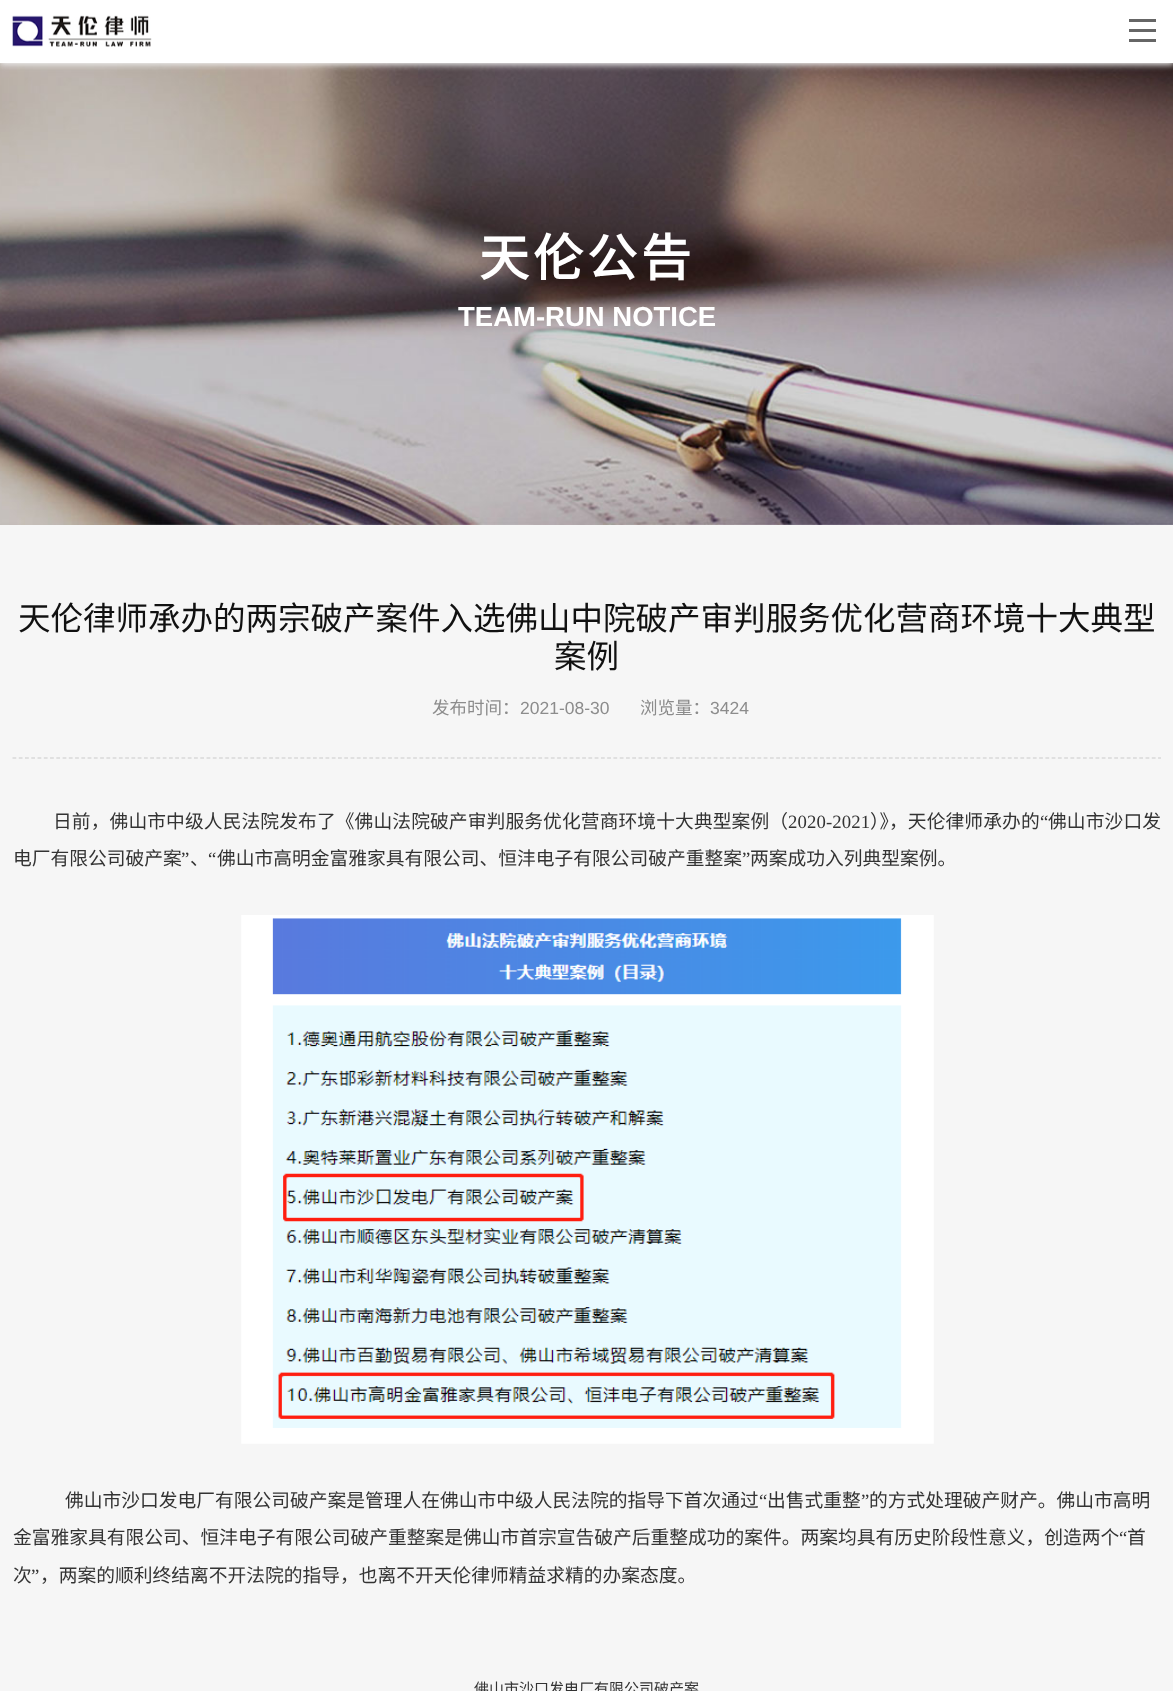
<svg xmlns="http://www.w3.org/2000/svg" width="1173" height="1691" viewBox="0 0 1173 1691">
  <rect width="100%" height="100%" fill="rgb(246,246,246)"/>
  <image x="0" y="63" width="1173" height="462" href="pic2.png"/>
  <rect x="0" y="3" width="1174" height="62" fill="rgb(238,238,238)" filter="blur(3px)"/>
  <rect x="0" y="0" width="1173" height="63" fill="rgb(255,255,255)"/>
  <image x="12" y="15" width="140" height="32" href="pic1.png"/>
  <rect x="1129" y="19" width="27" height="3" fill="rgb(102,102,102)"/>
  <rect x="1129" y="29" width="27" height="3" fill="rgb(102,102,102)"/>
  <rect x="1129" y="39" width="27" height="3" fill="rgb(102,102,102)"/>
  <text x="479" y="276" font-family="Noto Sans CJK SC" font-size="50" font-weight="bold" letter-spacing="4" fill="rgb(255,255,255)">天伦公告</text>
  <text x="458" y="326" font-family="Liberation Sans" font-size="27.5" font-weight="bold" fill="rgb(255,255,255)">TEAM-RUN NOTICE</text>
  <path d="M12.5 758H1161" fill="none" stroke="rgb(201,201,201)" stroke-width="1.2" stroke-dasharray="3.75 2.51"/>
  <g font-family="Noto Sans CJK SC" font-size="32.5" fill="rgb(17,17,17)">
    <text x="18" y="630">天伦律师承办的两宗破产案件入选佛山中院破产审判服务优化营商环境十大典型</text>
    <text x="554" y="668">案例</text>
  </g>
  <text x="432" y="714" font-family="Noto Sans CJK SC" font-size="17.5" fill="rgb(140,140,140)">发布时间：</text>
  <text x="520" y="714" font-family="Liberation Sans" font-size="17.5" fill="rgb(140,140,140)">2021-08-30</text>
  <text x="640" y="714" font-family="Noto Sans CJK SC" font-size="17.5" fill="rgb(140,140,140)">浏览量：</text>
  <text x="710" y="714" font-family="Liberation Sans" font-size="17.5" fill="rgb(140,140,140)">3424</text>
  <text x="53" y="828" font-family="Noto Sans CJK SC" font-size="18.75" letter-spacing="0.1" fill="rgb(51,51,51)">日前，佛山市中级人民法院发布了《佛山法院破产审判服务优化营商环境十大典型案例（</text>
  <text x="788" y="828" font-family="Liberation Serif" font-size="18.75" letter-spacing="0.1" fill="rgb(51,51,51)">2020-2021</text>
  <text x="870" y="828" font-family="Noto Sans CJK SC" font-size="18.75" letter-spacing="0.1" fill="rgb(51,51,51)">）》，天伦律师承办的</text>
  <text x="1040" y="828" font-family="Liberation Serif" font-size="18.75" letter-spacing="0.1" fill="rgb(51,51,51)">“</text>
  <text x="1048" y="828" font-family="Noto Sans CJK SC" font-size="18.75" letter-spacing="0.1" fill="rgb(51,51,51)">佛山市沙口发</text>
  <text x="13" y="865" font-family="Noto Sans CJK SC" font-size="18.75" fill="rgb(51,51,51)">电厂有限公司破产案</text>
  <g font-family="Liberation Serif" font-size="18.75" fill="rgb(51,51,51)">
    <text x="181" y="865">”</text>
    <text x="208" y="865">“</text>
  </g>
  <text x="217" y="865" font-family="Noto Sans CJK SC" font-size="18.75" fill="rgb(51,51,51)">佛山市高明金富雅家具有限公司、恒沣电子有限公司破产重整案</text>
  <text x="742" y="865" font-family="Liberation Serif" font-size="18.75" fill="rgb(51,51,51)">”</text>
  <g font-family="Noto Sans CJK SC" font-size="18.75" fill="rgb(51,51,51)">
    <text x="750" y="865">两案成功入列典型案例。</text>
    <text x="190" y="865">、</text>
  </g>
  <image x="241" y="915" width="693" height="529" href="pic3.png"/>
  <text x="65" y="1507" font-family="Noto Sans CJK SC" font-size="18.75" fill="rgb(51,51,51)">佛山市沙口发电厂有限公司破产案是管理人在佛山市中级人民法院的指导下首次通过</text>
  <text x="759" y="1507" font-family="Liberation Serif" font-size="18.75" fill="rgb(51,51,51)">“</text>
  <text x="767" y="1507" font-family="Noto Sans CJK SC" font-size="18.75" fill="rgb(51,51,51)">出售式重整</text>
  <text x="861" y="1507" font-family="Liberation Serif" font-size="18.75" fill="rgb(51,51,51)">”</text>
  <g font-family="Noto Sans CJK SC" font-size="18.75" fill="rgb(51,51,51)">
    <text x="869" y="1507">的方式处理破产财产。佛山市高明</text>
    <text x="13" y="1544">金富雅家具有限公司、恒沣电子有限公司破产重整案是佛山市首宗宣告破产后重整成功的案件。两案均具有历史阶段性意义，创造两个</text>
  </g>
  <text x="1119" y="1544" font-family="Liberation Serif" font-size="18.75" fill="rgb(51,51,51)">“</text>
  <g font-family="Noto Sans CJK SC" font-size="18.75" fill="rgb(51,51,51)">
    <text x="1127" y="1544">首</text>
    <text x="13" y="1582">次</text>
  </g>
  <text x="31" y="1582" font-family="Liberation Serif" font-size="18.75" fill="rgb(51,51,51)">”</text>
  <text x="40" y="1582" font-family="Noto Sans CJK SC" font-size="18.75" fill="rgb(51,51,51)">，两案的顺利终结离不开法院的指导，也离不开天伦律师精益求精的办案态度。</text>
  <text x="474" y="1694" font-family="Noto Sans CJK SC" font-size="15" fill="rgb(51,51,51)">佛山市沙口发电厂有限公司破产案</text>
</svg>
